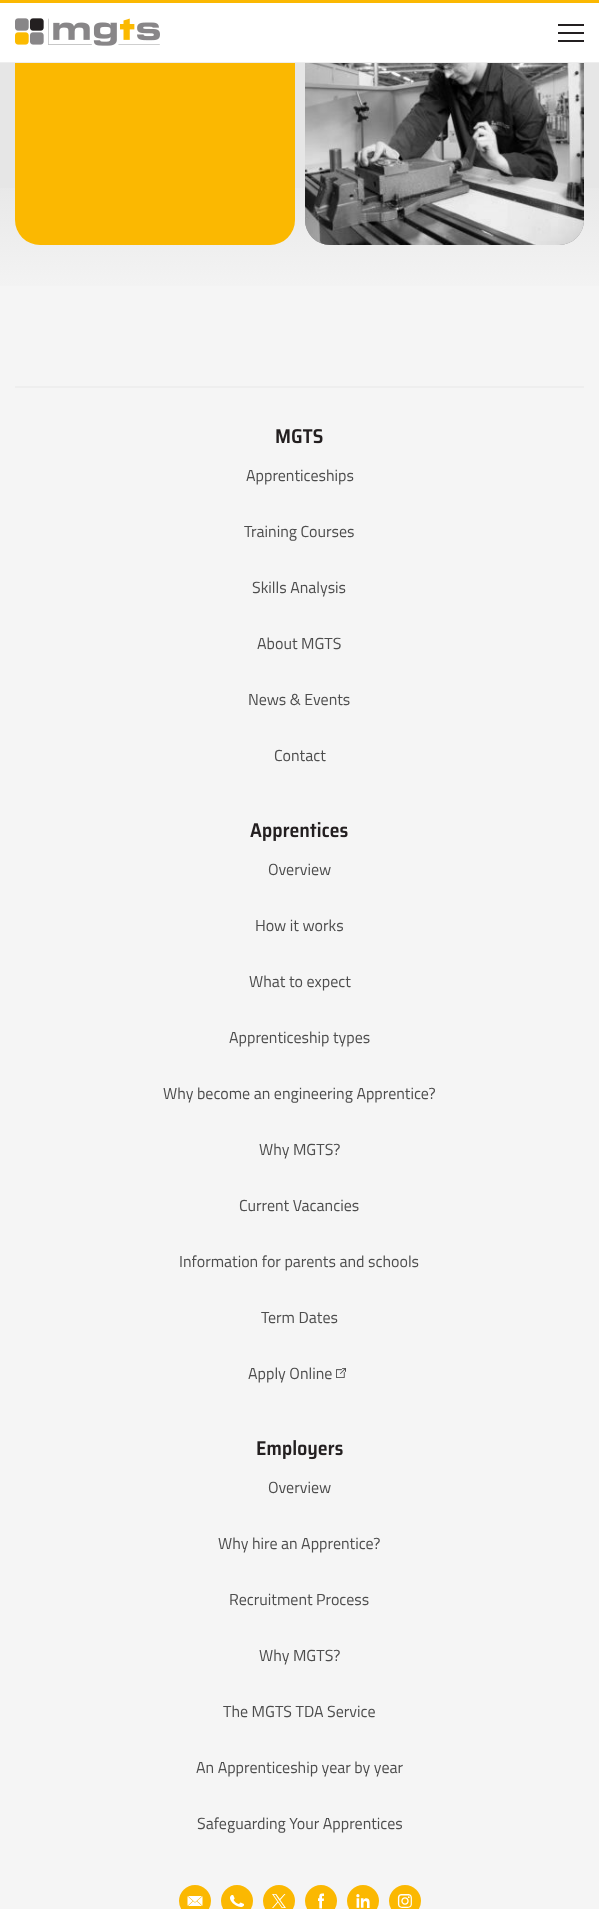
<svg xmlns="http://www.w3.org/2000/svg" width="599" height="1909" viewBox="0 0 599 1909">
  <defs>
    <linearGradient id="g1" gradientUnits="userSpaceOnUse" x1="300" y1="165" x2="300" y2="305"><stop offset="0" stop-color="rgb(230,230,230)"/><stop offset="1" stop-color="rgb(245,245,245)"/></linearGradient>
  </defs>
  <rect width="100%" height="100%" fill="rgb(230,230,230)"/>
  <rect x="0" y="188" width="599" height="98" fill="url(#g1)"/>
  <rect x="15" y="-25" width="280" height="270" rx="25" fill="rgb(251,184,1)"/>
  <rect x="305" y="-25" width="279" height="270" rx="25" fill="rgb(136,135,137)"/>
  <image x="305" y="63" width="279" height="182" href="pic1.png"/>
  <rect x="0" y="0" width="599" height="3" fill="rgb(251,184,1)"/>
  <rect x="0" y="62" width="599" height="1" fill="rgb(238,238,238)"/>
  <rect x="0" y="3" width="599" height="59" fill="rgb(255,255,255)"/>
  <image x="15" y="18" width="145" height="28" href="pic2.png"/>
  <rect x="558" y="32" width="26" height="2" fill="rgb(35,31,32)"/>
  <rect x="558" y="24" width="26" height="2" fill="rgb(35,31,32)"/>
  <rect x="558" y="40" width="26" height="2" fill="rgb(35,31,32)"/>
  <rect x="0" y="286" width="599" height="1623" fill="rgb(245,245,245)"/>
  <rect x="15" y="386" width="569" height="2" fill="rgb(238,238,238)"/>
  <image x="276" y="429" width="47" height="15" href="pic3.png"/>
  <g font-family="Titillium Web" font-size="16" fill="rgb(77,77,77)">
    <text x="246" y="481">Apprenticeships</text>
    <text x="244" y="537">Training Courses</text>
    <text x="252" y="593">Skills Analysis</text>
    <text x="257" y="649">About MGTS</text>
    <text x="248" y="705">News &amp; Events</text>
    <text x="274" y="761">Contact</text>
  </g>
  <image x="250" y="822" width="98" height="19" href="pic4.png"/>
  <g font-family="Titillium Web" font-size="16" fill="rgb(77,77,77)">
    <text x="268" y="875">Overview</text>
    <text x="255" y="931">How it works</text>
    <text x="249" y="987">What to expect</text>
    <text x="229" y="1043">Apprenticeship types</text>
    <text x="163" y="1099">Why become an engineering Apprentice?</text>
    <text x="259" y="1155">Why MGTS?</text>
    <text x="239" y="1211">Current Vacancies</text>
    <text x="179" y="1267">Information for parents and schools</text>
    <text x="261" y="1323">Term Dates</text>
    <text x="248" y="1379">Apply Online</text>
  </g>
  <image x="336" y="1368" width="10" height="10" href="pic5.png"/>
  <image x="257" y="1440" width="86" height="20" href="pic6.png"/>
  <g font-family="Titillium Web" font-size="16" fill="rgb(77,77,77)">
    <text x="268" y="1493">Overview</text>
    <text x="218" y="1549">Why hire an Apprentice?</text>
    <text x="229" y="1605">Recruitment Process</text>
    <text x="259" y="1661">Why MGTS?</text>
    <text x="223" y="1717">The MGTS TDA Service</text>
    <text x="196" y="1773">An Apprenticeship year by year</text>
    <text x="197" y="1829">Safeguarding Your Apprentices</text>
  </g>
  <circle cx="195" cy="1901" r="16" fill="rgb(251,184,1)"/>
  <image x="187" y="1896" width="16" height="10" href="pic7.png"/>
  <circle cx="237" cy="1901" r="16" fill="rgb(251,184,1)"/>
  <image x="230" y="1895" width="14" height="12" href="pic8.png"/>
  <circle cx="279" cy="1901" r="16" fill="rgb(251,184,1)"/>
  <image x="272" y="1894" width="14" height="14" href="pic9.png"/>
  <circle cx="321" cy="1901" r="16" fill="rgb(251,184,1)"/>
  <image x="318" y="1893" width="6" height="16" href="pic10.png"/>
  <circle cx="363" cy="1901" r="16" fill="rgb(251,184,1)"/>
  <image x="356" y="1894" width="14" height="14" href="pic11.png"/>
  <circle cx="405" cy="1901" r="16" fill="rgb(251,184,1)"/>
  <image x="397" y="1894" width="15" height="14" href="pic12.png"/>
</svg>
